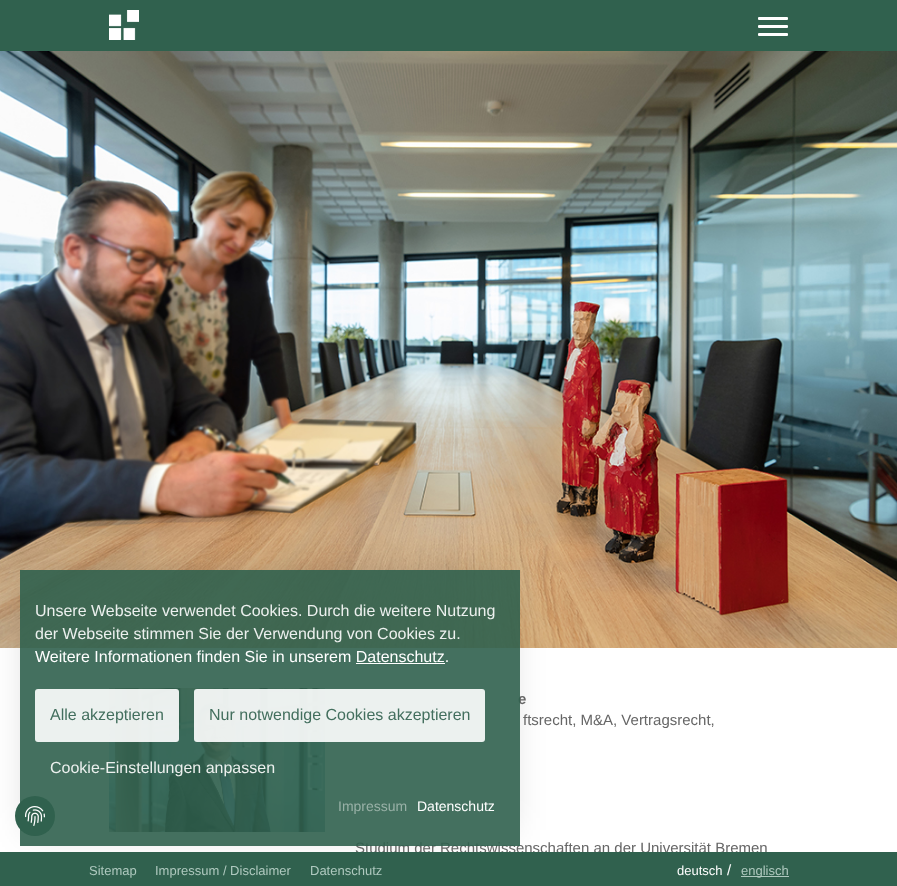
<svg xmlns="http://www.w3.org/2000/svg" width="897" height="886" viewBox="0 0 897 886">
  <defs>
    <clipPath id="clip1"><path d="M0 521H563V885H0ZM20 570H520V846H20Z" clip-rule="evenodd"/></clipPath>
  </defs>
  <rect width="100%" height="100%" fill="rgb(255,255,255)"/>
  <rect x="0" y="0" width="897" height="51" fill="rgb(48,97,78)"/>
  <image x="109" y="10" width="30" height="30" href="pic1.png"/>
  <rect x="758" y="17" width="30" height="3" rx="1" fill="rgb(255,255,255)"/>
  <rect x="758" y="25" width="30" height="3" rx="1" fill="rgb(255,255,255)"/>
  <rect x="758" y="33" width="30" height="3" rx="1" fill="rgb(255,255,255)"/>
  <image x="0" y="51" width="897" height="597" href="pic2.png"/>
  <image x="109" y="688" width="216" height="144" href="pic3.png"/>
  <g clip-path="url(#clip1)">
    <rect x="30" y="576" width="478" height="254" fill="rgba(0,0,0,0.18)" filter="blur(18px)"/>
  </g>
  <text x="518" y="704" font-family="Liberation Sans" font-size="15" font-weight="bold" fill="rgb(102,102,102)">e</text>
  <text x="355" y="853" font-family="Liberation Sans" font-size="15" fill="rgb(102,102,102)">Studium der Rechtswissenschaften an der Universität Bremen</text>
  <rect x="20" y="570" width="500" height="276" fill="rgba(48,97,78,0.9)"/>
  <g font-family="Liberation Sans" font-size="16" fill="rgb(236,240,238)">
    <text>
      <tspan x="35" y="616">Unsere Webseite verwendet Cookies. Durch die weitere Nutzung</tspan>
      <tspan x="35" y="639">der Webseite stimmen Sie der Verwendung von Cookies zu.</tspan>
    </text>
  </g>
  <text x="35" y="662" font-family="Liberation Sans" font-size="16" fill="rgb(255,255,255)">Weitere Informationen finden Sie in unserem Datenschutz.</text>
  <rect x="356" y="663" width="89" height="1" fill="rgb(255,255,255)"/>
  <rect x="35" y="689" width="144" height="53" rx="3" fill="rgba(255,255,255,0.9)"/>
  <text x="50" y="720" font-family="Liberation Sans" font-size="16" fill="rgb(67,111,94)">Alle akzeptieren</text>
  <rect x="194" y="689" width="291" height="53" rx="3" fill="rgba(255,255,255,0.9)"/>
  <text x="209" y="720" font-family="Liberation Sans" font-size="16" fill="rgb(67,111,94)">Nur notwendige Cookies akzeptieren</text>
  <text x="50" y="773" font-family="Liberation Sans" font-size="16" fill="rgb(236,240,238)">Cookie-Einstellungen anpassen</text>
  <text x="338" y="811" font-family="Liberation Sans" font-size="14" fill="rgb(153,177,167)">Impressum</text>
  <text x="417" y="811" font-family="Liberation Sans" font-size="14" fill="rgb(255,255,255)">Datenschutz</text>
  <text x="523" y="725" font-family="Liberation Sans" font-size="15" fill="rgb(102,102,102)">ftsrecht, M&amp;A, Vertragsrecht,</text>
  <circle cx="35" cy="816" r="20" fill="rgb(48,97,78)"/>
  <image x="25" y="806" width="20" height="20" href="pic4.png"/>
  <rect x="0" y="852" width="897" height="34" fill="rgb(48,97,78)"/>
  <g font-family="Liberation Sans" font-size="13" fill="rgb(175,201,191)">
    <text x="89" y="875">Sitemap</text>
    <text x="155" y="875">Impressum / Disclaimer</text>
    <text x="310" y="875">Datenschutz</text>
  </g>
  <text x="677" y="875" font-family="Liberation Sans" font-size="13" fill="rgb(255,255,255)">deutsch</text>
  <text x="727" y="875" font-family="Liberation Sans" font-size="15" fill="rgb(255,255,255)">/</text>
  <rect x="741" y="876" width="48" height="1" fill="rgb(175,201,191)"/>
  <text x="741" y="875" font-family="Liberation Sans" font-size="13" fill="rgb(175,201,191)">englisch</text>
</svg>
